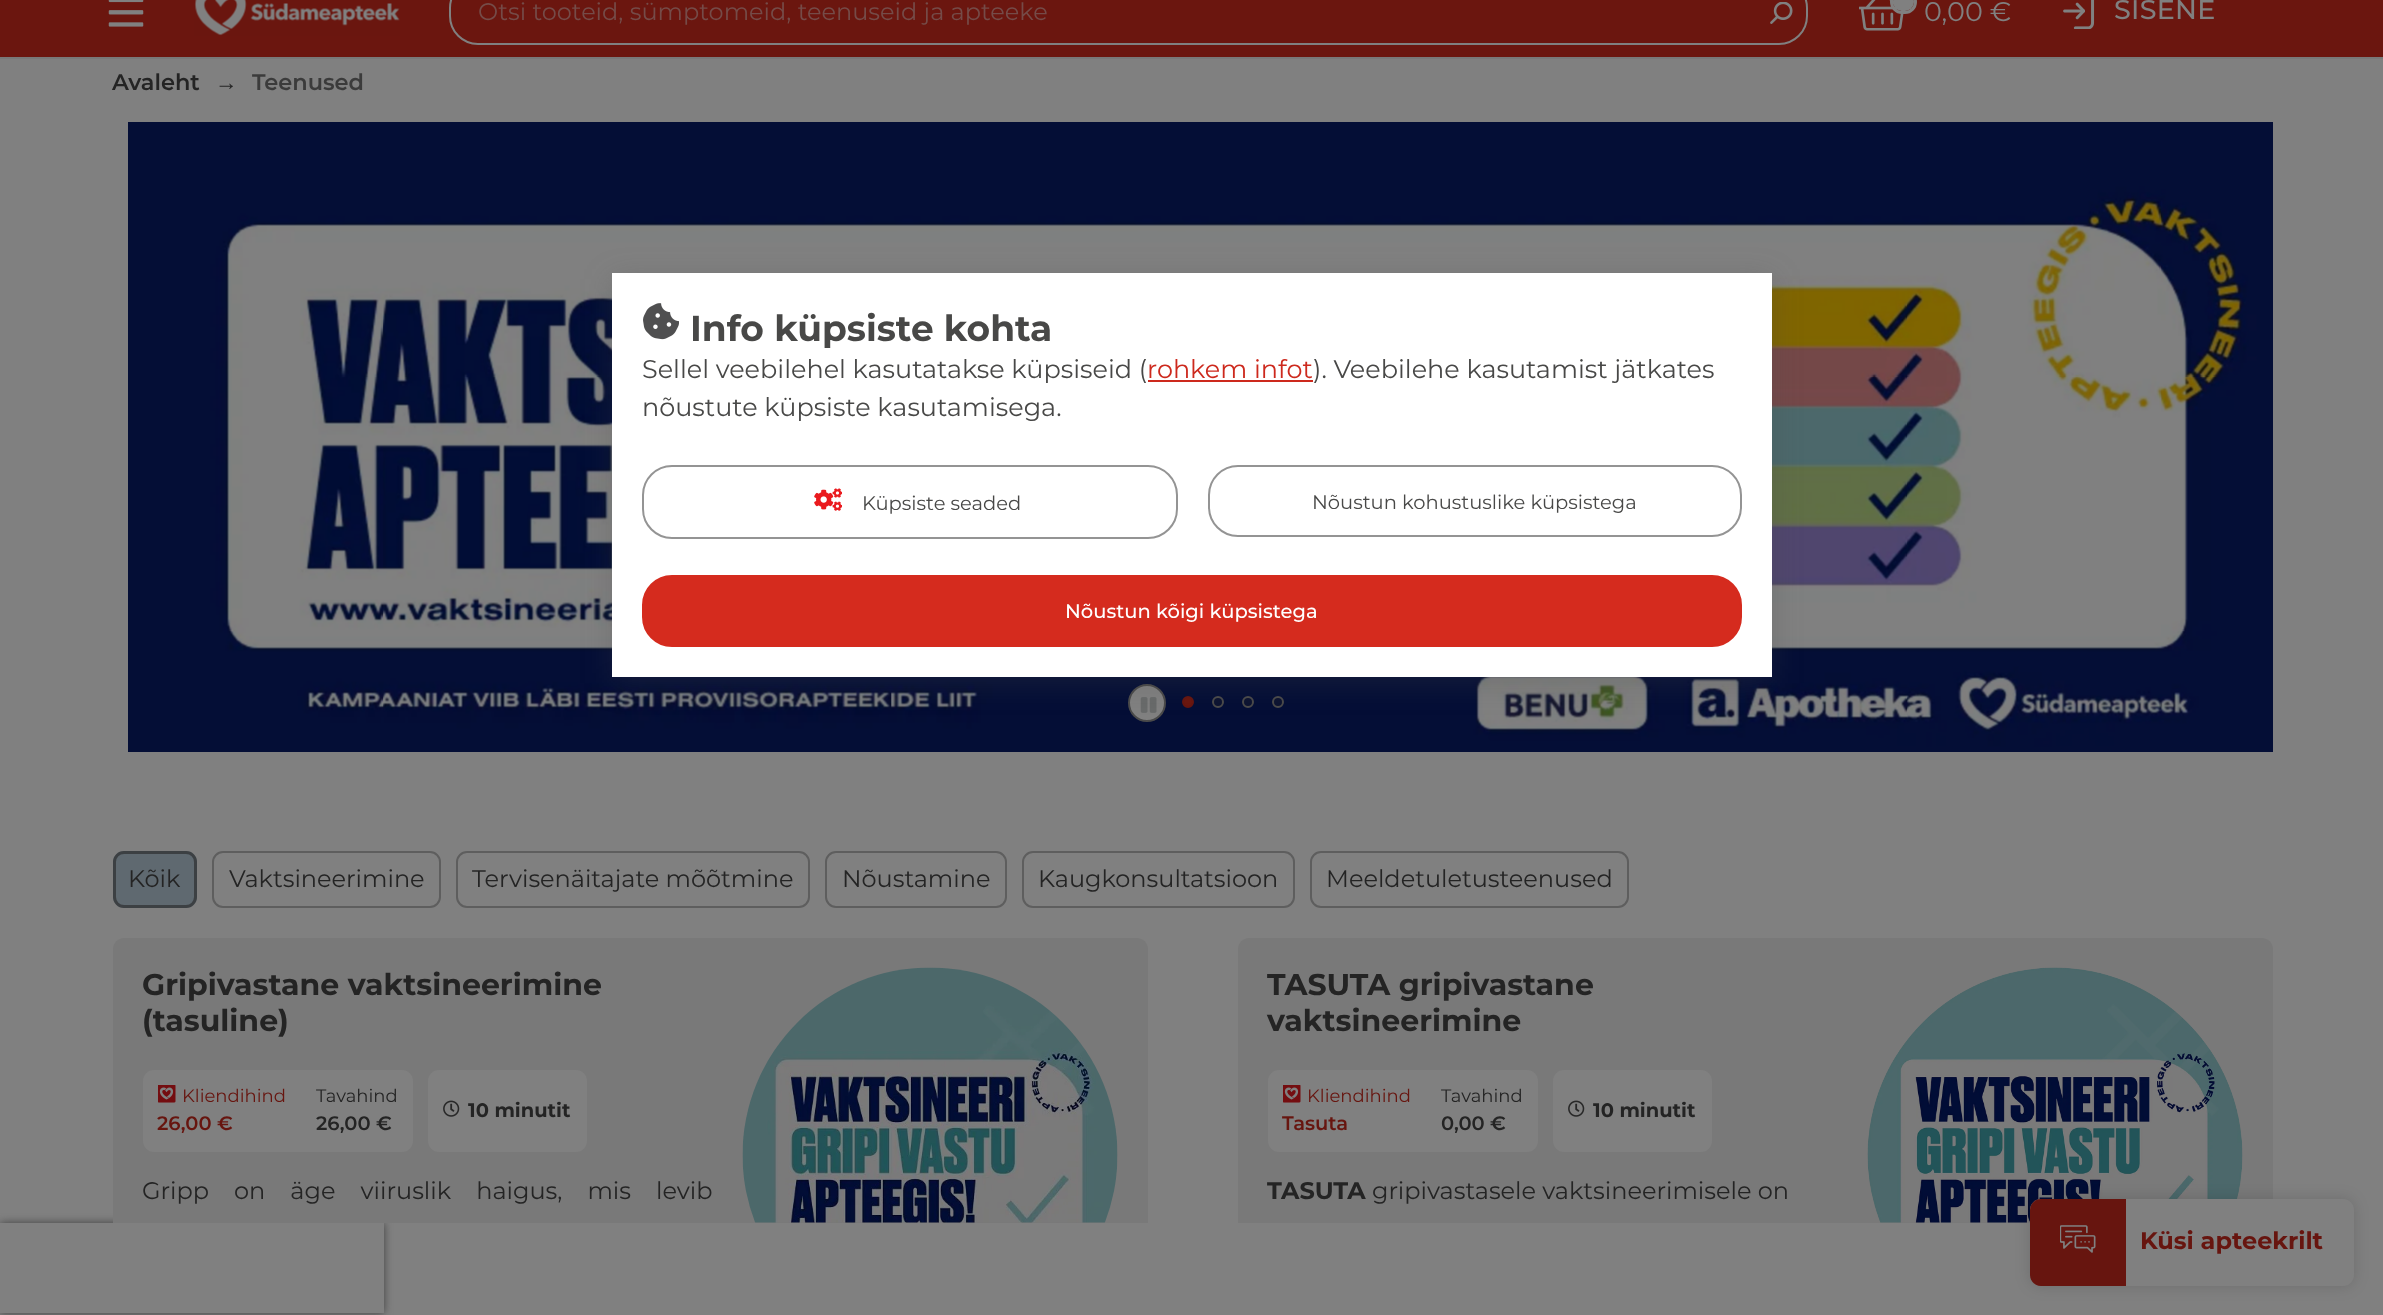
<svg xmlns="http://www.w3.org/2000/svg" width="2383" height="1315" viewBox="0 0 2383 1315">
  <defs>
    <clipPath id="clip1"><path d="M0 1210H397V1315H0ZM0 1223H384V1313H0Z" clip-rule="evenodd"/></clipPath>
  </defs>
  <rect width="100%" height="100%" fill="rgb(128,128,128)"/>
  <rect x="0" y="0" width="2383" height="57" fill="rgb(107,22,15)"/>
  <rect x="0" y="57" width="2383" height="2" fill="rgb(121,121,121)"/>
  <image x="108" y="0" width="36" height="27" href="pic1.png"/>
  <image x="194" y="0" width="206" height="36" href="pic2.png"/>
  <image x="1770" y="2" width="23" height="22" href="pic3.png"/>
  <rect x="450" y="-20" width="1357" height="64" rx="28" fill="none" stroke="rgb(128,128,128)" stroke-width="2"/>
  <text x="478" y="20" font-family="Montserrat" font-size="24" fill="rgb(117,75,72)">Otsi tooteid, sümptomeid, teenuseid ja apteeke</text>
  <image x="1859" y="0" width="45" height="31" href="pic4.png"/>
  <rect x="1891.5" y="-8.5" width="24" height="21" rx="10.5" fill="none" stroke="rgb(128,128,128)" stroke-width="3"/>
  <rect x="1893" y="-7" width="21" height="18" rx="9" fill="rgb(128,128,128)"/>
  <text x="1924" y="21" font-family="Montserrat" font-size="27" fill="rgb(128,128,128)">0,00 €</text>
  <image x="2063" y="0" width="32" height="29" href="pic5.png"/>
  <text x="2114" y="19" font-family="Montserrat" font-size="27" font-weight="500" letter-spacing="0.25" fill="rgb(128,128,128)">SISENE</text>
  <text x="112" y="90" font-family="Montserrat" font-size="22.5" font-weight="600" fill="rgb(36,36,36)">Avaleht</text>
  <text x="215" y="90" font-family="Liberation Sans" font-size="22.5" font-weight="bold" fill="rgb(36,36,36)">→</text>
  <text x="252" y="90" font-family="Montserrat" font-size="22.5" font-weight="600" fill="rgb(59,59,59)">Teenused</text>
  <image x="128" y="122" width="2145" height="630" href="pic6.png"/>
  <circle cx="1147" cy="703" r="18" fill="rgb(128,128,128)" stroke="rgb(74,74,74)" stroke-width="2"/>
  <image x="1140" y="697" width="17" height="16" href="pic7.png"/>
  <circle cx="1188" cy="702" r="5" fill="rgb(107,22,15)" stroke="rgb(103,21,15)" stroke-width="2"/>
  <circle cx="1218" cy="702" r="5" fill="rgb(12,19,49)" stroke="rgb(74,74,74)" stroke-width="2"/>
  <circle cx="1248" cy="702" r="5" fill="rgb(12,19,49)" stroke="rgb(74,74,74)" stroke-width="2"/>
  <circle cx="1278" cy="702" r="5" fill="rgb(12,19,49)" stroke="rgb(74,74,74)" stroke-width="2"/>
  <rect x="114" y="852" width="82" height="55" rx="10" fill="rgb(95,105,112)" stroke="rgb(95,105,112)" stroke-width="2"/>
  <rect x="114.5" y="852.5" width="81" height="54" rx="9.5" fill="none" stroke="rgba(36,36,36,0.6)" stroke-width="3"/>
  <text x="128" y="887" font-family="Montserrat" font-size="24" fill="rgb(36,36,36)">Kõik</text>
  <rect x="213" y="852" width="227" height="55" rx="10" fill="none" stroke="rgb(94,94,94)" stroke-width="2"/>
  <text x="229" y="887" font-family="Montserrat" font-size="24" fill="rgb(36,36,36)">Vaktsineerimine</text>
  <rect x="457" y="852" width="352" height="55" rx="10" fill="none" stroke="rgb(94,94,94)" stroke-width="2"/>
  <text x="472" y="887" font-family="Montserrat" font-size="24" fill="rgb(36,36,36)">Tervisenäitajate mõõtmine</text>
  <rect x="826" y="852" width="180" height="55" rx="10" fill="none" stroke="rgb(94,94,94)" stroke-width="2"/>
  <text x="842" y="887" font-family="Montserrat" font-size="24" fill="rgb(36,36,36)">Nõustamine</text>
  <rect x="1023" y="852" width="271" height="55" rx="10" fill="none" stroke="rgb(94,94,94)" stroke-width="2"/>
  <text x="1038" y="887" font-family="Montserrat" font-size="24" fill="rgb(36,36,36)">Kaugkonsultatsioon</text>
  <rect x="1311" y="852" width="317" height="55" rx="10" fill="none" stroke="rgb(94,94,94)" stroke-width="2"/>
  <text x="1326" y="887" font-family="Montserrat" font-size="24" fill="rgb(36,36,36)">Meeldetuletusteenused</text>
  <g clip-path="url(#clip1)">
    <rect x="0" y="1223" width="384" height="90" fill="rgb(64,64,64)" filter="blur(4px)"/>
  </g>
  <path d="M124 938H1137C1143 938 1148 943 1148 949V1223H113V949C113 943 118 938 124 938Z" fill="rgb(121,121,121)"/>
  <g font-family="Montserrat" font-size="30" font-weight="bold" fill="rgb(36,36,36)">
    <text>
      <tspan x="142" y="995">Gripivastane vaktsineerimine</tspan>
      <tspan x="142" y="1031">(tasuline)</tspan>
    </text>
  </g>
  <rect x="143" y="1070" width="270" height="82" rx="11" fill="rgb(128,128,128)"/>
  <image x="158" y="1085" width="18" height="18" href="pic8.png"/>
  <text x="182" y="1102" font-family="Montserrat" font-size="18" fill="rgb(103,21,15)">Kliendihind</text>
  <text x="157" y="1130" font-family="Montserrat" font-size="19.5" font-weight="600" fill="rgb(103,21,15)">26,00 €</text>
  <text x="316" y="1102" font-family="Montserrat" font-size="18" fill="rgb(36,36,36)">Tavahind</text>
  <text x="316" y="1130" font-family="Montserrat" font-size="19.5" font-weight="600" fill="rgb(36,36,36)">26,00 €</text>
  <rect x="428" y="1070" width="159" height="82" rx="11" fill="rgb(128,128,128)"/>
  <image x="443" y="1100" width="17" height="17" href="pic9.png"/>
  <text x="468" y="1117" font-family="Montserrat" font-size="19.5" font-weight="bold" fill="rgb(36,36,36)">10 minutit</text>
  <text x="142" y="1199" word-spacing="18.75" font-family="Montserrat" font-size="24" fill="rgb(36,36,36)">Gripp on äge viiruslik haigus, mis levib</text>
  <image x="742" y="967" width="376" height="256" href="pic10.png"/>
  <path d="M1249 938H2262C2268 938 2273 943 2273 949V1223H1238V949C1238 943 1243 938 1249 938Z" fill="rgb(121,121,121)"/>
  <g font-family="Montserrat" font-size="30" font-weight="bold" fill="rgb(36,36,36)">
    <text>
      <tspan x="1267" y="995">TASUTA gripivastane</tspan>
      <tspan x="1267" y="1031">vaktsineerimine</tspan>
    </text>
  </g>
  <rect x="1268" y="1070" width="270" height="82" rx="11" fill="rgb(128,128,128)"/>
  <image x="1283" y="1085" width="18" height="18" href="pic8.png"/>
  <text x="1307" y="1102" font-family="Montserrat" font-size="18" fill="rgb(103,21,15)">Kliendihind</text>
  <text x="1282" y="1130" font-family="Montserrat" font-size="19.5" font-weight="600" fill="rgb(103,21,15)">Tasuta</text>
  <text x="1441" y="1102" font-family="Montserrat" font-size="18" fill="rgb(36,36,36)">Tavahind</text>
  <text x="1441" y="1130" font-family="Montserrat" font-size="19.5" font-weight="600" fill="rgb(36,36,36)">0,00 €</text>
  <rect x="1553" y="1070" width="159" height="82" rx="11" fill="rgb(128,128,128)"/>
  <image x="1568" y="1100" width="17" height="17" href="pic9.png"/>
  <text x="1593" y="1117" font-family="Montserrat" font-size="19.5" font-weight="bold" fill="rgb(36,36,36)">10 minutit</text>
  <text x="1267" y="1199" font-family="Montserrat" font-size="24" font-weight="bold" fill="rgb(36,36,36)">TASUTA</text>
  <text x="1372" y="1199" font-family="Montserrat" font-size="24" fill="rgb(36,36,36)">gripivastasele vaktsineerimisele on</text>
  <image x="1867" y="967" width="376" height="256" href="pic11.png"/>
  <rect x="2030" y="1199" width="324" height="87" rx="11" fill="rgba(0,0,0,0.15)" filter="blur(7.5px)"/>
  <rect x="2030" y="1199" width="324" height="87" rx="11" fill="rgb(128,128,128)"/>
  <path d="M2041 1199H2126V1286H2041C2035 1286 2030 1281 2030 1275V1210C2030 1204 2035 1199 2041 1199Z" fill="rgb(103,21,15)"/>
  <image x="2060" y="1225" width="36" height="28" href="pic12.png"/>
  <text x="2140" y="1249" font-family="Montserrat" font-size="24" font-weight="bold" fill="rgb(103,21,15)">Küsi apteekrilt</text>
  <rect x="612" y="279" width="1160" height="404" fill="rgba(72,72,71,0.25)" filter="blur(15px)"/>
  <rect x="612" y="273" width="1160" height="404" fill="rgb(255,255,255)"/>
  <image x="643" y="303" width="36" height="37" href="pic13.png"/>
  <text x="690" y="341" font-family="Montserrat" font-size="36" font-weight="bold" fill="rgb(72,72,71)">Info küpsiste kohta</text>
  <text x="642" y="378" font-family="Montserrat" font-size="25.5" fill="rgb(72,72,71)">Sellel veebilehel kasutatakse küpsiseid (</text>
  <text x="1147" y="378" font-family="Montserrat" font-size="25.5" fill="rgb(205,41,29)">rohkem infot</text>
  <rect x="1148" y="380" width="165" height="2" fill="rgb(205,41,29)"/>
  <g font-family="Montserrat" font-size="25.5" fill="rgb(72,72,71)">
    <text x="1313" y="378">). Veebilehe kasutamist jätkates</text>
    <text x="642" y="416">nõustute küpsiste kasutamisega.</text>
  </g>
  <rect x="643" y="466" width="534" height="72" rx="29" fill="none" stroke="rgb(148,148,148)" stroke-width="2"/>
  <image x="814" y="488" width="28" height="23" href="pic14.png"/>
  <text x="862" y="510" font-family="Montserrat" font-size="19.5" fill="rgb(72,72,71)">Küpsiste seaded</text>
  <rect x="1209" y="466" width="532" height="70" rx="29" fill="none" stroke="rgb(148,148,148)" stroke-width="2"/>
  <text x="1312" y="509" font-family="Montserrat" font-size="19.5" fill="rgb(72,72,71)">Nõustun kohustuslike küpsistega</text>
  <rect x="643" y="576" width="1098" height="70" rx="29" fill="rgb(213,43,30)" stroke="rgb(213,43,30)" stroke-width="2"/>
  <text x="1065" y="618" font-family="Montserrat" font-size="19.5" font-weight="500" fill="rgb(255,255,255)">Nõustun kõigi küpsistega</text>
</svg>
